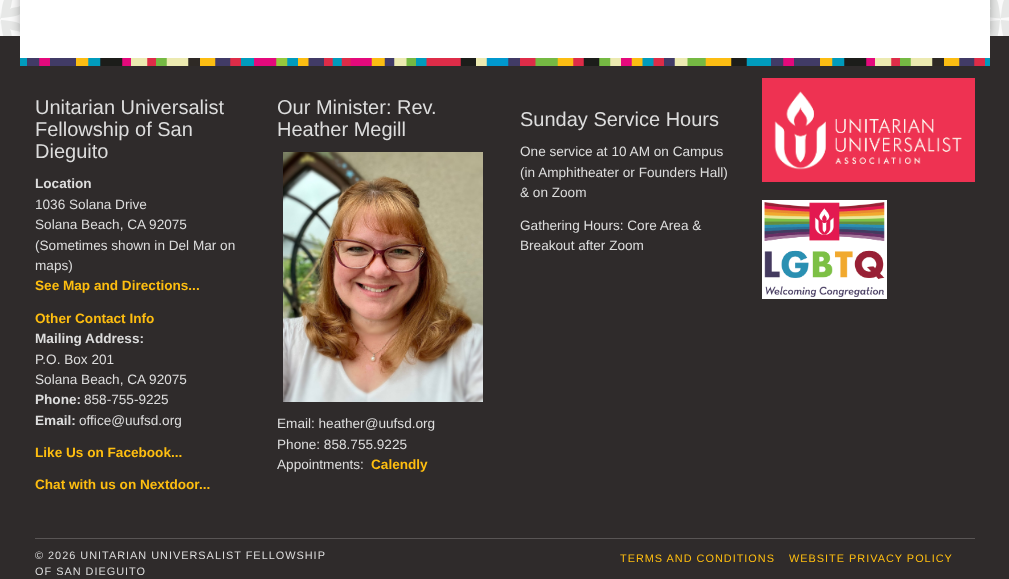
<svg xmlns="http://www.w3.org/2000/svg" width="1009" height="579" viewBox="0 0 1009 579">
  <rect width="100%" height="100%" fill="rgb(255,255,255)"/>
  <image x="0" y="0" width="1009" height="36" href="pic1.png"/>
  <rect x="20" y="-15" width="970" height="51" fill="rgba(0,0,0,0.3)" filter="blur(5px)"/>
  <rect x="20" y="0" width="970" height="36" fill="rgb(255,255,255)"/>
  <rect x="0" y="36" width="1009" height="543" fill="rgb(47,43,43)"/>
  <rect x="20" y="36" width="970" height="22" fill="rgb(255,255,255)"/>
  <image x="20" y="58" width="970" height="8" href="pic2.png"/>
  <g font-family="Liberation Sans" font-size="20" fill="rgb(221,221,221)">
    <text>
      <tspan x="35" y="114">Unitarian Universalist</tspan>
      <tspan x="35" y="136">Fellowship of San</tspan>
      <tspan x="35" y="158">Dieguito</tspan>
    </text>
  </g>
  <text x="35" y="188" font-family="Liberation Sans" font-size="13.6" font-weight="bold" fill="rgb(221,221,221)">Location</text>
  <g font-family="Liberation Sans" font-size="13.6" fill="rgb(221,221,221)">
    <text>
      <tspan x="35" y="209">1036 Solana Drive</tspan>
      <tspan x="35" y="229">Solana Beach, CA 92075</tspan>
      <tspan x="35" y="250">(Sometimes shown in Del Mar on</tspan>
      <tspan x="35" y="270">maps)</tspan>
    </text>
  </g>
  <g font-family="Liberation Sans" font-size="13.6" font-weight="bold" fill="rgb(254,190,16)">
    <text x="35" y="290">See Map and Directions...</text>
    <text x="35" y="323">Other Contact Info</text>
  </g>
  <text x="35" y="343" font-family="Liberation Sans" font-size="13.6" font-weight="bold" fill="rgb(221,221,221)">Mailing Address:</text>
  <g font-family="Liberation Sans" font-size="13.6" fill="rgb(221,221,221)">
    <text>
      <tspan x="35" y="364">P.O. Box 201</tspan>
      <tspan x="35" y="384">Solana Beach, CA 92075</tspan>
    </text>
  </g>
  <text x="35" y="404" font-family="Liberation Sans" font-size="13.6" font-weight="bold" fill="rgb(221,221,221)">Phone:</text>
  <text x="84" y="404" font-family="Liberation Sans" font-size="13.6" fill="rgb(221,221,221)">858-755-9225</text>
  <text x="35" y="425" font-family="Liberation Sans" font-size="13.6" font-weight="bold" fill="rgb(221,221,221)">Email:</text>
  <text x="79" y="425" font-family="Liberation Sans" font-size="13.6" fill="rgb(221,221,221)">office@uufsd.org</text>
  <g font-family="Liberation Sans" font-size="13.6" font-weight="bold" fill="rgb(254,190,16)">
    <text x="35" y="457">Like Us on Facebook...</text>
    <text x="35" y="489">Chat with us on Nextdoor...</text>
  </g>
  <g font-family="Liberation Sans" font-size="20" fill="rgb(221,221,221)">
    <text>
      <tspan x="277" y="114">Our Minister: Rev.</tspan>
      <tspan x="277" y="136">Heather Megill</tspan>
    </text>
  </g>
  <image x="283" y="152" width="200" height="250" href="pic3.png"/>
  <g font-family="Liberation Sans" font-size="13.6" fill="rgb(221,221,221)">
    <text>
      <tspan x="277" y="428">Email: heather@uufsd.org</tspan>
      <tspan x="277" y="449">Phone: 858.755.9225</tspan>
      <tspan x="277" y="469">Appointments:</tspan>
    </text>
  </g>
  <text x="371" y="469" font-family="Liberation Sans" font-size="13.6" font-weight="bold" fill="rgb(254,190,16)">Calendly</text>
  <text x="520" y="126" font-family="Liberation Sans" font-size="20" fill="rgb(221,221,221)">Sunday Service Hours</text>
  <g font-family="Liberation Sans" font-size="13.6" fill="rgb(221,221,221)">
    <text>
      <tspan x="520" y="156">One service at 10 AM on Campus</tspan>
      <tspan x="520" y="177">(in Amphitheater or Founders Hall)</tspan>
      <tspan x="520" y="197">&amp; on Zoom</tspan>
    </text>
    <text>
      <tspan x="520" y="230">Gathering Hours: Core Area &amp;</tspan>
      <tspan x="520" y="250">Breakout after Zoom</tspan>
    </text>
  </g>
  <image x="762" y="78" width="213" height="104" href="pic4.png"/>
  <image x="762" y="200" width="125" height="99" href="pic5.png"/>
  <rect x="35" y="538" width="940" height="1" fill="rgb(89,85,85)"/>
  <g font-family="Liberation Sans" font-size="10.9" letter-spacing="1" fill="rgb(221,221,221)">
    <text>
      <tspan x="35" y="559">© 2026 UNITARIAN UNIVERSALIST FELLOWSHIP</tspan>
      <tspan x="35" y="575">OF SAN DIEGUITO</tspan>
    </text>
  </g>
  <g font-family="Liberation Sans" font-size="10.9" letter-spacing="1" fill="rgb(254,190,16)">
    <text x="620" y="562">TERMS AND CONDITIONS</text>
    <text x="789" y="562">WEBSITE PRIVACY POLICY</text>
  </g>
</svg>
